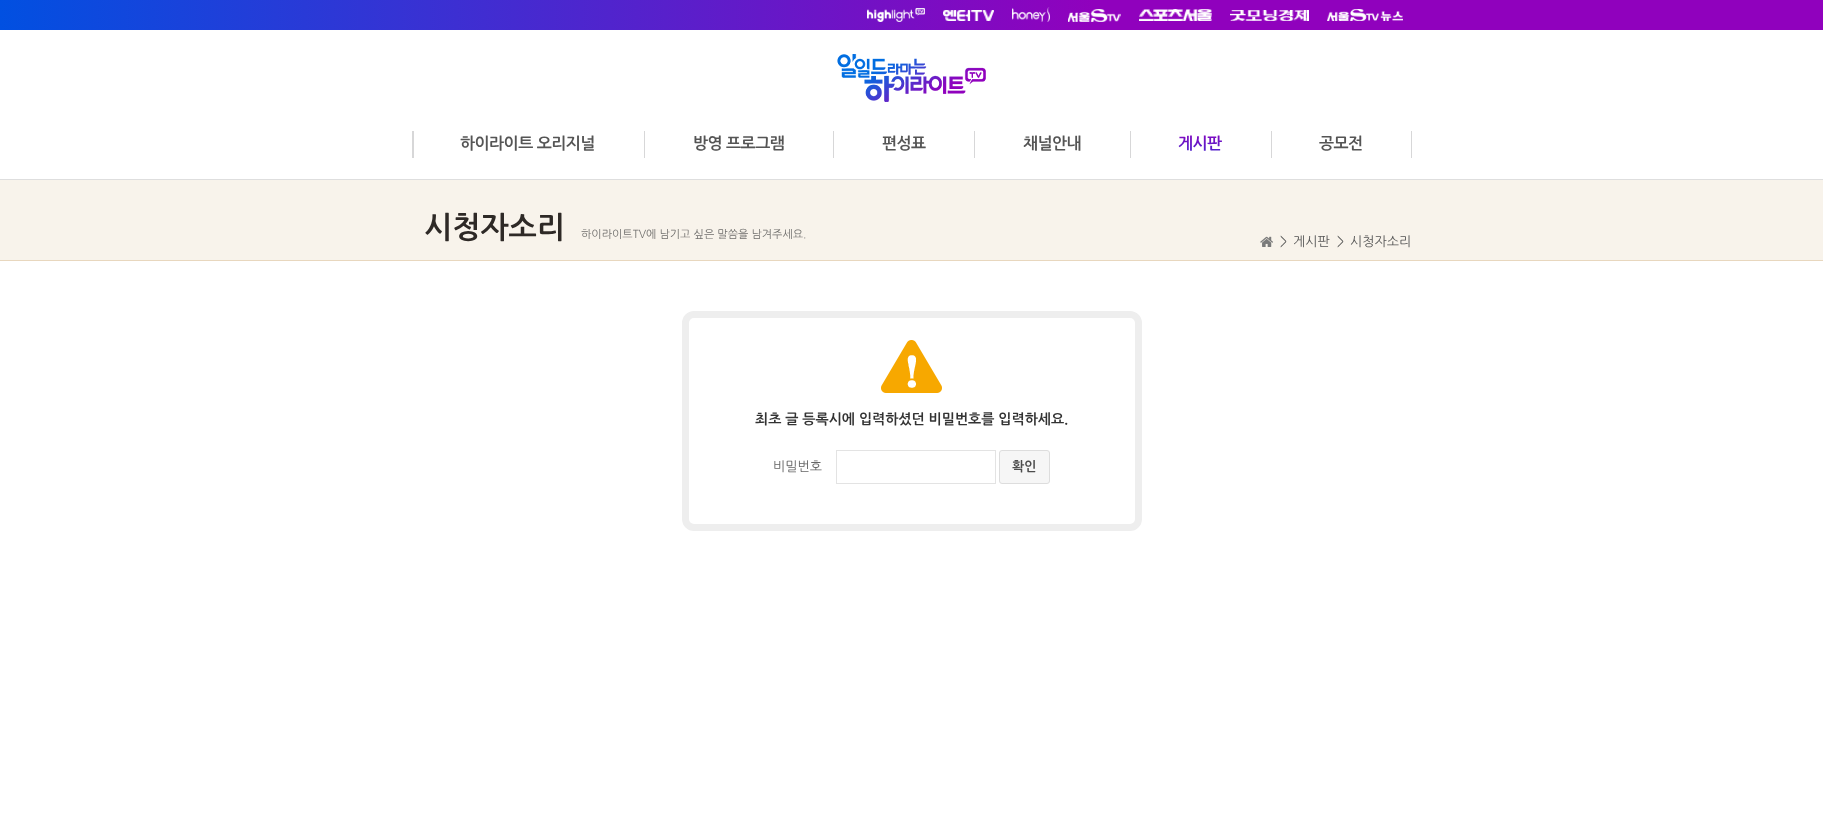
<svg xmlns="http://www.w3.org/2000/svg" width="1823" height="827" viewBox="0 0 1823 827">
  <defs>
    <linearGradient id="g1" gradientUnits="userSpaceOnUse" x1="1200" y1="179" x2="1200" y2="109"><stop offset="0" stop-color="rgb(1,80,225)"/><stop offset="0.7" stop-color="rgb(144,1,189)"/></linearGradient>
    <linearGradient id="g2" gradientUnits="userSpaceOnUse" x1="0" y1="15" x2="1823" y2="15"><stop offset="0" stop-color="rgb(1,80,225)"/><stop offset="0.6" stop-color="rgb(144,1,189)"/></linearGradient>
  </defs>
  <rect width="100%" height="100%" fill="rgb(255,255,255)"/>
  <rect x="0" y="0" width="1823" height="30" fill="url(#g2)"/>
  <image x="867" y="8" width="58" height="14" href="pic1.png"/>
  <image x="943" y="10" width="51" height="11" href="pic2.png"/>
  <image x="1012" y="7" width="38" height="15" href="pic3.png"/>
  <image x="1068" y="9" width="53" height="13" href="pic4.png"/>
  <image x="1139" y="9" width="73" height="12" href="pic5.png"/>
  <image x="1230" y="10" width="79" height="11" href="pic6.png"/>
  <image x="1327" y="9" width="76" height="12" href="pic7.png"/>
  <rect x="0" y="179" width="1823" height="1" fill="rgb(222,222,222)"/>
  <image x="837" y="54" width="149" height="48" href="pic8.png"/>
  <rect x="1411" y="131" width="1" height="27" fill="rgb(215,215,216)"/>
  <rect x="412" y="131" width="2" height="27" fill="rgb(215,215,216)"/>
  <text x="460" y="149" font-family="NanumGothic" font-size="16" font-weight="bold" letter-spacing="-0.5" fill="rgb(85,85,85)">하이라이트 오리지널</text>
  <rect x="644" y="131" width="1" height="27" fill="rgb(215,215,216)"/>
  <text x="693" y="149" font-family="NanumGothic" font-size="16" font-weight="bold" letter-spacing="-0.5" fill="rgb(85,85,85)">방영 프로그램</text>
  <rect x="833" y="131" width="1" height="27" fill="rgb(215,215,216)"/>
  <text x="882" y="149" font-family="NanumGothic" font-size="16" font-weight="bold" letter-spacing="-0.5" fill="rgb(85,85,85)">편성표</text>
  <rect x="974" y="131" width="1" height="27" fill="rgb(215,215,216)"/>
  <text x="1023" y="149" font-family="NanumGothic" font-size="16" font-weight="bold" letter-spacing="-0.5" fill="rgb(85,85,85)">채널안내</text>
  <rect x="1130" y="131" width="1" height="27" fill="rgb(215,215,216)"/>
  <text x="1178" y="149" font-family="NanumGothic" font-size="16" font-weight="bold" letter-spacing="-0.5" fill="url(#g1)">게시판</text>
  <rect x="1271" y="131" width="1" height="27" fill="rgb(215,215,216)"/>
  <text x="1319" y="149" font-family="NanumGothic" font-size="16" font-weight="bold" letter-spacing="-0.5" fill="rgb(85,85,85)">공모전</text>
  <rect x="0" y="180" width="1823" height="80" fill="rgb(248,243,235)"/>
  <rect x="0" y="260" width="1823" height="1" fill="rgb(232,215,190)"/>
  <text x="424" y="238" font-family="NanumGothic" font-size="30" font-weight="bold" fill="rgb(46,41,38)">시청자소리</text>
  <text x="581" y="238" font-family="NanumGothic" font-size="11" fill="rgb(112,111,109)">하이라이트TV에 남기고 싶은 말씀을 남겨주세요.</text>
  <image x="1260" y="236" width="13" height="11" href="pic9.png"/>
  <g font-family="NanumGothic" font-size="13" fill="rgb(85,85,85)">
    <text x="1280" y="246">&gt;</text>
    <text x="1293" y="246">게시판</text>
    <text x="1337" y="246">&gt;</text>
    <text x="1350" y="246">시청자소리</text>
  </g>
  <image x="881" y="340" width="61" height="53" href="pic10.png"/>
  <rect x="685.5" y="314.5" width="453" height="213" rx="8.5" fill="none" stroke="rgb(238,238,238)" stroke-width="7"/>
  <text x="755" y="424" font-family="NanumGothic" font-size="14" font-weight="bold" fill="rgb(51,51,51)">최초 글 등록시에 입력하셨던 비밀번호를 입력하세요.</text>
  <text x="773" y="471" font-family="NanumGothic" font-size="13" fill="rgb(102,102,102)">비밀번호</text>
  <rect x="836.5" y="450.5" width="159" height="33" fill="none" stroke="rgb(227,227,227)"/>
  <rect x="999.5" y="450.5" width="50" height="33" rx="2.5" fill="rgb(246,246,246)" stroke="rgb(221,221,221)"/>
  <text x="1012" y="471" font-family="NanumGothic" font-size="13" font-weight="bold" fill="rgb(77,77,77)">확인</text>
</svg>
